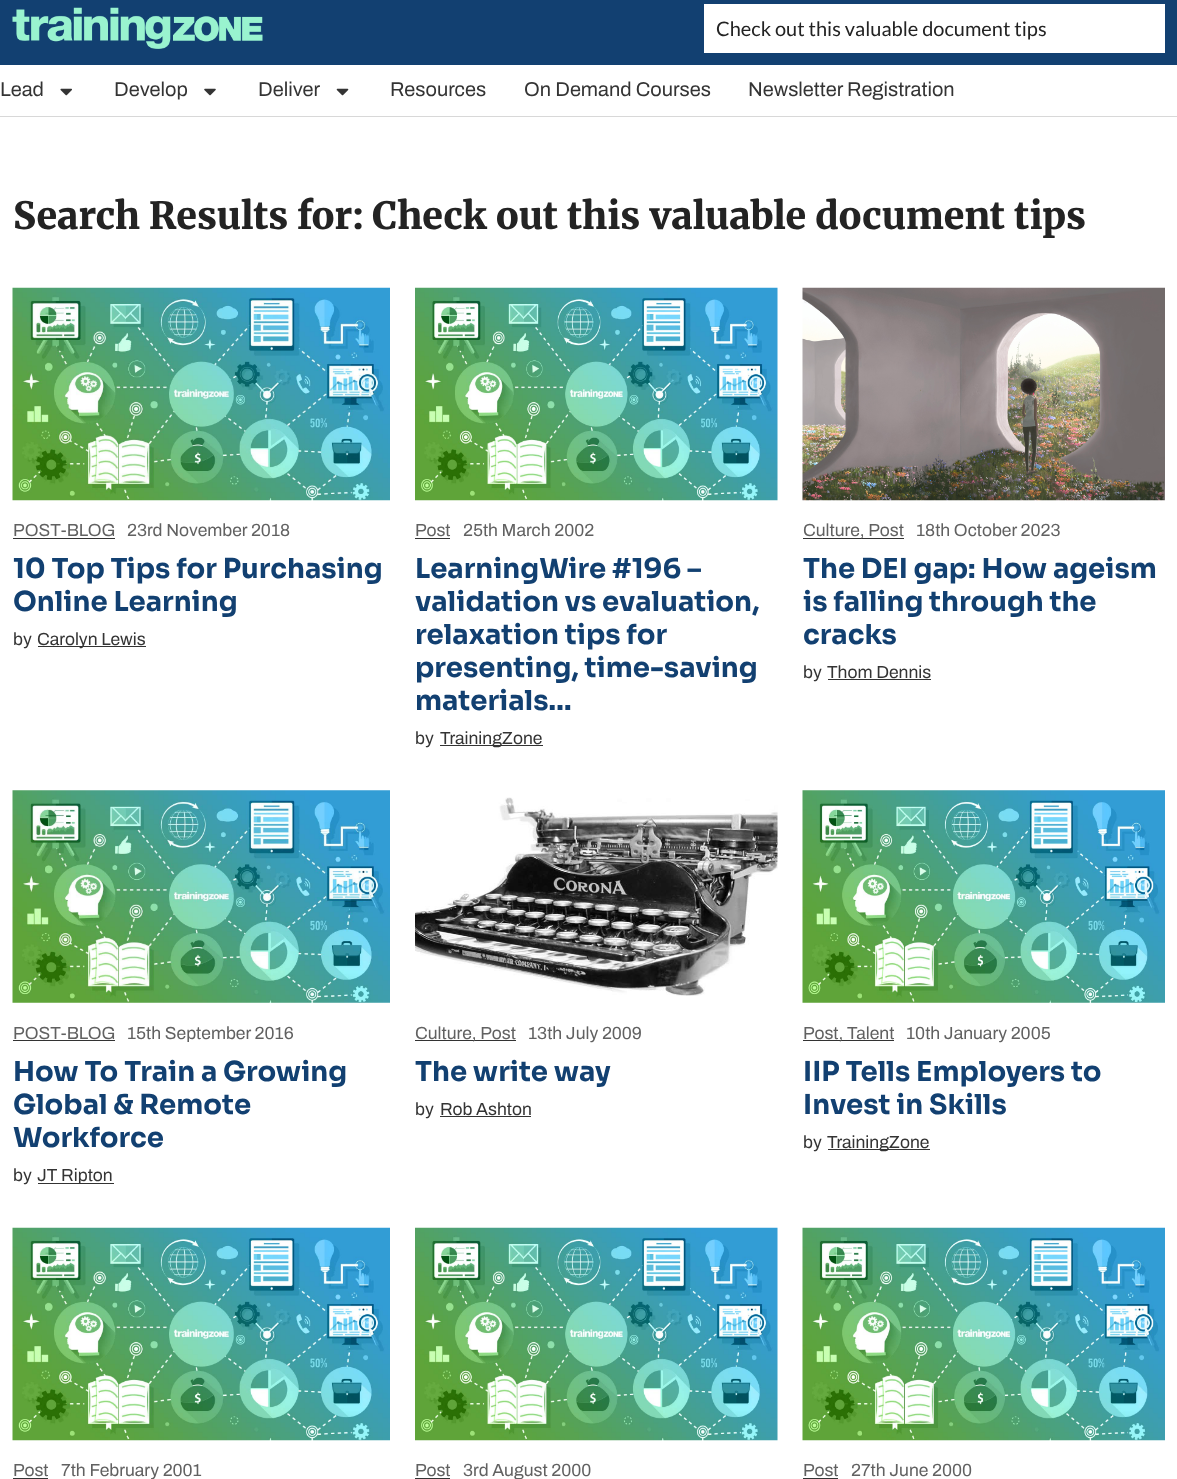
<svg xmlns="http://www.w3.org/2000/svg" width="1177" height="1479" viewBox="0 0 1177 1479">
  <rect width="100%" height="100%" fill="rgb(255,255,255)"/>
  <rect x="0" y="0" width="1177" height="65" fill="rgb(18,64,113)"/>
  <image x="12" y="7" width="251" height="42" href="pic1.png"/>
  <rect x="704" y="4" width="461" height="49" fill="rgb(255,255,255)"/>
  <text x="716" y="36" font-family="Lato" font-size="20" fill="rgb(35,35,35)">Check out this valuable document tips</text>
  <rect x="0" y="116" width="1177" height="1" fill="rgb(216,216,216)"/>
  <text x="0" y="96" font-family="Archivo" font-size="20" fill="rgb(52,52,52)">Lead</text>
  <image x="60" y="88" width="12" height="8" href="pic2.png"/>
  <text x="114" y="96" font-family="Archivo" font-size="20" fill="rgb(52,52,52)">Develop</text>
  <image x="204" y="88" width="12" height="8" href="pic3.png"/>
  <text x="258" y="96" font-family="Archivo" font-size="20" fill="rgb(52,52,52)">Deliver</text>
  <image x="336" y="88" width="13" height="8" href="pic4.png"/>
  <g font-family="Archivo" font-size="20" fill="rgb(52,52,52)">
    <text x="390" y="96">Resources</text>
    <text x="524" y="96">On Demand Courses</text>
    <text x="748" y="96">Newsletter Registration</text>
  </g>
  <text x="13" y="229" font-family="Merriweather" font-size="37.5" font-weight="900" fill="rgb(35,35,35)">Search Results for: Check out this valuable document tips</text>
  <image x="12" y="287" width="378" height="214" href="pic5.png"/>
  <text x="13" y="536" font-family="Archivo" font-size="17.5" fill="rgb(97,97,97)">POST-BLOG</text>
  <rect x="13" y="538" width="102" height="1" fill="rgb(51,51,51)"/>
  <text x="127" y="536" font-family="Archivo" font-size="17.5" fill="rgb(97,97,97)">23rd November 2018</text>
  <g font-family="Sora" font-size="27.5" font-weight="bold" fill="rgb(18,64,113)">
    <text>
      <tspan x="13" y="578">10 Top Tips for Purchasing</tspan>
      <tspan x="13" y="611">Online Learning</tspan>
    </text>
  </g>
  <text x="13" y="645" font-family="Archivo" font-size="17.5" fill="rgb(52,52,52)">by</text>
  <rect x="38" y="646" width="108" height="1" fill="rgb(51,51,51)"/>
  <text x="37" y="645" font-family="Archivo" font-size="17.5" fill="rgb(52,52,52)">Carolyn Lewis</text>
  <image x="415" y="287" width="363" height="214" href="pic6.png"/>
  <text x="415" y="536" font-family="Archivo" font-size="17.5" fill="rgb(97,97,97)">Post</text>
  <rect x="415" y="538" width="35" height="1" fill="rgb(51,51,51)"/>
  <text x="463" y="536" font-family="Archivo" font-size="17.5" fill="rgb(97,97,97)">25th March 2002</text>
  <g font-family="Sora" font-size="27.5" font-weight="bold" fill="rgb(18,64,113)">
    <text>
      <tspan x="415" y="578">LearningWire #196 –</tspan>
      <tspan x="415" y="611">validation vs evaluation,</tspan>
      <tspan x="415" y="644">relaxation tips for</tspan>
      <tspan x="415" y="677">presenting, time-saving</tspan>
      <tspan x="415" y="710">materials…</tspan>
    </text>
  </g>
  <text x="415" y="744" font-family="Archivo" font-size="17.5" fill="rgb(52,52,52)">by</text>
  <rect x="440" y="745" width="103" height="1" fill="rgb(51,51,51)"/>
  <text x="440" y="744" font-family="Archivo" font-size="17.5" fill="rgb(52,52,52)">TrainingZone</text>
  <image x="802" y="287" width="363" height="214" href="pic7.png"/>
  <rect x="803" y="538" width="101" height="1" fill="rgb(51,51,51)"/>
  <g font-family="Archivo" font-size="17.5" fill="rgb(97,97,97)">
    <text x="803" y="536">Culture, Post</text>
    <text x="916" y="536">18th October 2023</text>
  </g>
  <g font-family="Sora" font-size="27.5" font-weight="bold" fill="rgb(18,64,113)">
    <text>
      <tspan x="803" y="578">The DEI gap: How ageism</tspan>
      <tspan x="803" y="611">is falling through the</tspan>
      <tspan x="803" y="644">cracks</tspan>
    </text>
  </g>
  <g font-family="Archivo" font-size="17.5" fill="rgb(52,52,52)">
    <text x="803" y="678">by</text>
    <text x="827" y="678">Thom Dennis</text>
  </g>
  <rect x="828" y="679" width="103" height="1" fill="rgb(51,51,51)"/>
  <image x="12" y="790" width="378" height="213" href="pic8.png"/>
  <text x="13" y="1039" font-family="Archivo" font-size="17.5" fill="rgb(97,97,97)">POST-BLOG</text>
  <rect x="13" y="1040" width="102" height="1" fill="rgb(51,51,51)"/>
  <text x="127" y="1039" font-family="Archivo" font-size="17.5" fill="rgb(97,97,97)">15th September 2016</text>
  <g font-family="Sora" font-size="27.5" font-weight="bold" fill="rgb(18,64,113)">
    <text>
      <tspan x="13" y="1081">How To Train a Growing</tspan>
      <tspan x="13" y="1114">Global &amp; Remote</tspan>
      <tspan x="13" y="1147">Workforce</tspan>
    </text>
  </g>
  <text x="13" y="1181" font-family="Archivo" font-size="17.5" fill="rgb(52,52,52)">by</text>
  <rect x="38" y="1183" width="76" height="1" fill="rgb(51,51,51)"/>
  <text x="37" y="1181" font-family="Archivo" font-size="17.5" fill="rgb(52,52,52)">JT Ripton</text>
  <image x="415" y="797" width="363" height="199" href="pic9.png"/>
  <rect x="415" y="1040" width="101" height="1" fill="rgb(51,51,51)"/>
  <g font-family="Archivo" font-size="17.5" fill="rgb(97,97,97)">
    <text x="415" y="1039">Culture, Post</text>
    <text x="528" y="1039">13th July 2009</text>
  </g>
  <text x="415" y="1081" font-family="Sora" font-size="27.5" font-weight="bold" fill="rgb(18,64,113)">The write way</text>
  <g font-family="Archivo" font-size="17.5" fill="rgb(52,52,52)">
    <text x="415" y="1115">by</text>
    <text x="440" y="1115">Rob Ashton</text>
  </g>
  <rect x="440" y="1116" width="91" height="1" fill="rgb(51,51,51)"/>
  <image x="802" y="790" width="363" height="213" href="pic10.png"/>
  <rect x="803" y="1040" width="91" height="1" fill="rgb(51,51,51)"/>
  <g font-family="Archivo" font-size="17.5" fill="rgb(97,97,97)">
    <text x="803" y="1039">Post, Talent</text>
    <text x="906" y="1039">10th January 2005</text>
  </g>
  <g font-family="Sora" font-size="27.5" font-weight="bold" fill="rgb(18,64,113)">
    <text>
      <tspan x="803" y="1081">IIP Tells Employers to</tspan>
      <tspan x="803" y="1114">Invest in Skills</tspan>
    </text>
  </g>
  <text x="803" y="1148" font-family="Archivo" font-size="17.5" fill="rgb(52,52,52)">by</text>
  <rect x="828" y="1149" width="102" height="1" fill="rgb(51,51,51)"/>
  <text x="827" y="1148" font-family="Archivo" font-size="17.5" fill="rgb(52,52,52)">TrainingZone</text>
  <image x="12" y="1227" width="378" height="214" href="pic11.png"/>
  <text x="13" y="1476" font-family="Archivo" font-size="17.5" fill="rgb(97,97,97)">Post</text>
  <rect x="13" y="1478" width="35" height="1" fill="rgb(51,51,51)"/>
  <text x="61" y="1476" font-family="Archivo" font-size="17.5" fill="rgb(97,97,97)">7th February 2001</text>
  <image x="415" y="1227" width="363" height="214" href="pic6.png"/>
  <text x="415" y="1476" font-family="Archivo" font-size="17.5" fill="rgb(97,97,97)">Post</text>
  <rect x="415" y="1478" width="35" height="1" fill="rgb(51,51,51)"/>
  <text x="463" y="1476" font-family="Archivo" font-size="17.5" fill="rgb(97,97,97)">3rd August 2000</text>
  <image x="802" y="1227" width="363" height="214" href="pic12.png"/>
  <text x="803" y="1476" font-family="Archivo" font-size="17.5" fill="rgb(97,97,97)">Post</text>
  <rect x="803" y="1478" width="35" height="1" fill="rgb(51,51,51)"/>
  <text x="851" y="1476" font-family="Archivo" font-size="17.5" fill="rgb(97,97,97)">27th June 2000</text>
</svg>
